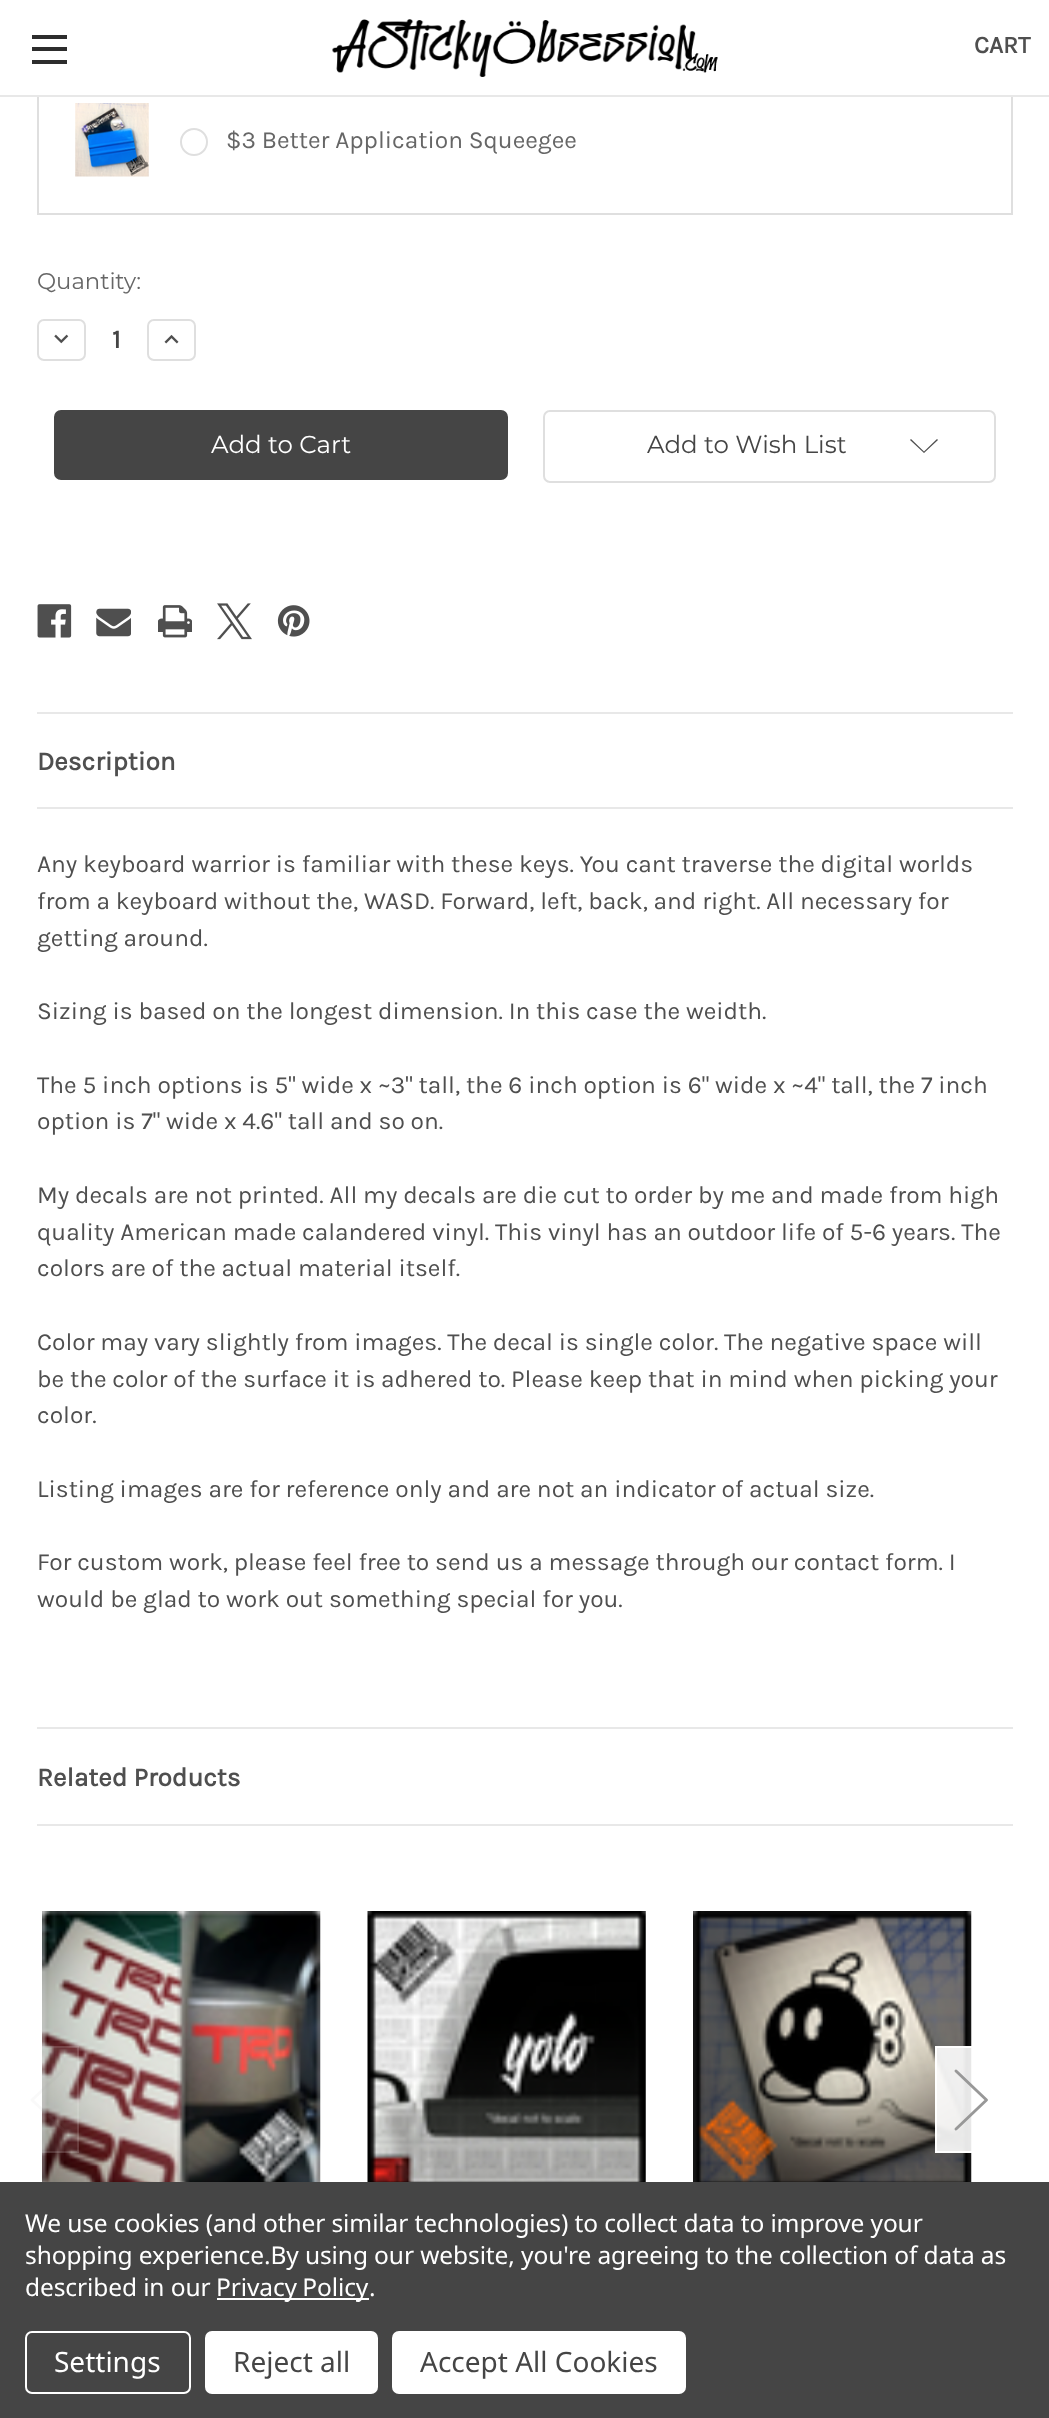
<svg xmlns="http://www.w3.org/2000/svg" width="1049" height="2418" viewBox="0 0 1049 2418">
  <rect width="100%" height="100%" fill="rgb(255,255,255)"/>
  <rect x="38" y="-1" width="974" height="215" fill="none" stroke="rgb(223,223,223)" stroke-width="2"/>
  <rect x="37" y="0" width="976" height="95" fill="rgb(255,255,255)"/>
  <rect x="0" y="95" width="1049" height="2" fill="rgb(232,232,232)"/>
  <rect x="32" y="47" width="35" height="4" fill="rgb(45,45,45)"/>
  <rect x="32" y="35" width="35" height="4" fill="rgb(45,45,45)"/>
  <rect x="32" y="60" width="35" height="4" fill="rgb(45,45,45)"/>
  <image x="332" y="19" width="386" height="58" href="pic1.png"/>
  <text x="974" y="53" font-family="Karla" font-size="24.5" font-weight="bold" fill="rgb(79,79,79)">CART</text>
  <image x="75" y="103" width="74" height="74" href="pic2.png"/>
  <circle cx="194" cy="142" r="13" fill="none" stroke="rgb(223,223,223)" stroke-width="2"/>
  <text x="226" y="148" font-family="Karla" font-size="24.5" fill="rgb(102,102,102)">$3 Better Application Squeegee</text>
  <text x="37" y="289" font-family="Montserrat" font-size="22.75" font-weight="100" fill="rgb(102,102,102)">Quantity:</text>
  <rect x="38" y="320" width="47" height="40" rx="6" fill="none" stroke="rgb(223,223,223)" stroke-width="2"/>
  <image x="54" y="334" width="15" height="10" href="pic3.png"/>
  <text x="112" y="348" font-family="Karla" font-size="26.25" font-weight="bold" fill="rgb(69,69,69)">1</text>
  <rect x="148" y="320" width="47" height="40" rx="6" fill="none" stroke="rgb(223,223,223)" stroke-width="2"/>
  <image x="164" y="334" width="15" height="10" href="pic4.png"/>
  <rect x="55" y="411" width="452" height="68" rx="6" fill="rgb(69,69,69)" stroke="rgb(69,69,69)" stroke-width="2"/>
  <text x="211" y="453" font-family="Montserrat" font-size="24.5" font-weight="100" fill="rgb(255,255,255)">Add to Cart</text>
  <rect x="544" y="411" width="451" height="71" rx="6" fill="none" stroke="rgb(223,223,223)" stroke-width="2"/>
  <text x="647" y="453" font-family="Montserrat" font-size="24.5" font-weight="100" fill="rgb(69,69,69)">Add to Wish List</text>
  <path d="M924 451.5L937 439L938 440L924 453L910 440L911 439Z" fill="rgb(79,79,79)" fill-rule="evenodd"/>
  <image x="37" y="604" width="35" height="34" href="pic5.png"/>
  <image x="96" y="608" width="35" height="29" href="pic6.png"/>
  <image x="158" y="605" width="34" height="33" href="pic7.png"/>
  <image x="217" y="603" width="35" height="37" href="pic8.png"/>
  <image x="277" y="605" width="33" height="32" href="pic9.png"/>
  <rect x="37" y="807" width="976" height="2" fill="rgb(232,232,232)"/>
  <rect x="37" y="712" width="976" height="2" fill="rgb(232,232,232)"/>
  <text x="37" y="770" font-family="Karla" font-size="26.25" font-weight="bold" fill="rgb(79,79,79)">Description</text>
  <g font-family="Karla" font-size="24.5" fill="rgb(79,79,79)">
    <text>
      <tspan x="37" y="872">Any keyboard warrior is familiar with these keys. You cant traverse the digital worlds</tspan>
      <tspan x="37" y="909">from a keyboard without the, WASD. Forward, left, back, and right. All necessary for</tspan>
      <tspan x="37" y="946">getting around.</tspan>
    </text>
    <text x="37" y="1019">Sizing is based on the longest dimension. In this case the weidth.</text>
    <text>
      <tspan x="37" y="1093">The 5 inch options is 5" wide x ~3" tall, the 6 inch option is 6" wide x ~4" tall, the 7 inch</tspan>
      <tspan x="37" y="1129">option is 7" wide x 4.6" tall and so on.</tspan>
    </text>
    <text>
      <tspan x="37" y="1203">My decals are not printed. All my decals are die cut to order by me and made from high</tspan>
      <tspan x="37" y="1240">quality American made calandered vinyl. This vinyl has an outdoor life of 5-6 years. The</tspan>
      <tspan x="37" y="1276">colors are of the actual material itself.</tspan>
    </text>
    <text>
      <tspan x="37" y="1350">Color may vary slightly from images. The decal is single color. The negative space will</tspan>
      <tspan x="37" y="1387">be the color of the surface it is adhered to. Please keep that in mind when picking your</tspan>
      <tspan x="37" y="1423">color.</tspan>
    </text>
    <text x="37" y="1497">Listing images are for reference only and are not an indicator of actual size.</text>
    <text>
      <tspan x="37" y="1570">For custom work, please feel free to send us a message through our contact form. I</tspan>
      <tspan x="37" y="1607">would be glad to work out something special for you.</tspan>
    </text>
  </g>
  <rect x="37" y="1824" width="976" height="2" fill="rgb(232,232,232)"/>
  <rect x="37" y="1727" width="976" height="2" fill="rgb(232,232,232)"/>
  <text x="37" y="1786" font-family="Karla" font-size="26.25" font-weight="bold" fill="rgb(79,79,79)">Related Products</text>
  <image x="42" y="1911" width="279" height="271" href="pic10.png"/>
  <image x="367" y="1911" width="279" height="271" href="pic11.png"/>
  <image x="693" y="1911" width="279" height="271" href="pic12.png"/>
  <rect x="42" y="2046" width="37" height="107" fill="rgba(255,255,255,0.09)"/>
  <rect x="12" y="2047" width="66" height="105" fill="none" stroke="rgba(255,255,255,0.1)" stroke-width="2"/>
  <path d="M62.5 2071L32 2100L62.5 2129" fill="none" stroke="rgba(152,152,152,0.06)" stroke-width="2.9" stroke-linecap="round" stroke-linejoin="round"/>
  <rect x="937" y="2048" width="35" height="103" fill="rgba(255,255,255,0.9)"/>
  <rect x="936" y="2047" width="68" height="105" fill="none" stroke="rgb(255,255,255)" stroke-width="2"/>
  <path d="M956 2071L986.5 2100L956 2129" fill="none" stroke="rgb(152,152,152)" stroke-width="2.9" stroke-linecap="round" stroke-linejoin="round"/>
  <rect x="0" y="2182" width="1049" height="236" fill="rgb(69,69,69)"/>
  <g font-family="Noto Sans" font-size="24.5" letter-spacing="-0.1" fill="rgb(255,255,255)">
    <text>
      <tspan x="25" y="2232">We use cookies (and other similar technologies) to collect data to improve your</tspan>
      <tspan x="25" y="2264">shopping experience.By using our website, you're agreeing to the collection of data as</tspan>
      <tspan x="25" y="2296">described in our</tspan>
    </text>
  </g>
  <rect x="217" y="2298" width="152" height="2" fill="rgb(255,255,255)"/>
  <g font-family="Noto Sans" font-size="24.5" letter-spacing="-0.1" fill="rgb(255,255,255)">
    <text x="216" y="2296" word-spacing="-1">Privacy Policy</text>
    <text x="369" y="2296">.</text>
  </g>
  <rect x="26" y="2332" width="164" height="61" rx="6" fill="none" stroke="rgb(255,255,255)" stroke-width="2"/>
  <text x="54" y="2372" font-family="Noto Sans" font-size="28" fill="rgb(255,255,255)">Settings</text>
  <rect x="205" y="2331" width="173" height="63" rx="7" fill="rgb(255,255,255)"/>
  <text x="233" y="2372" font-family="Noto Sans" font-size="28" fill="rgb(69,69,69)">Reject all</text>
  <rect x="392" y="2331" width="294" height="63" rx="7" fill="rgb(255,255,255)"/>
  <text x="420" y="2372" font-family="Noto Sans" font-size="28" fill="rgb(69,69,69)">Accept All Cookies</text>
</svg>
